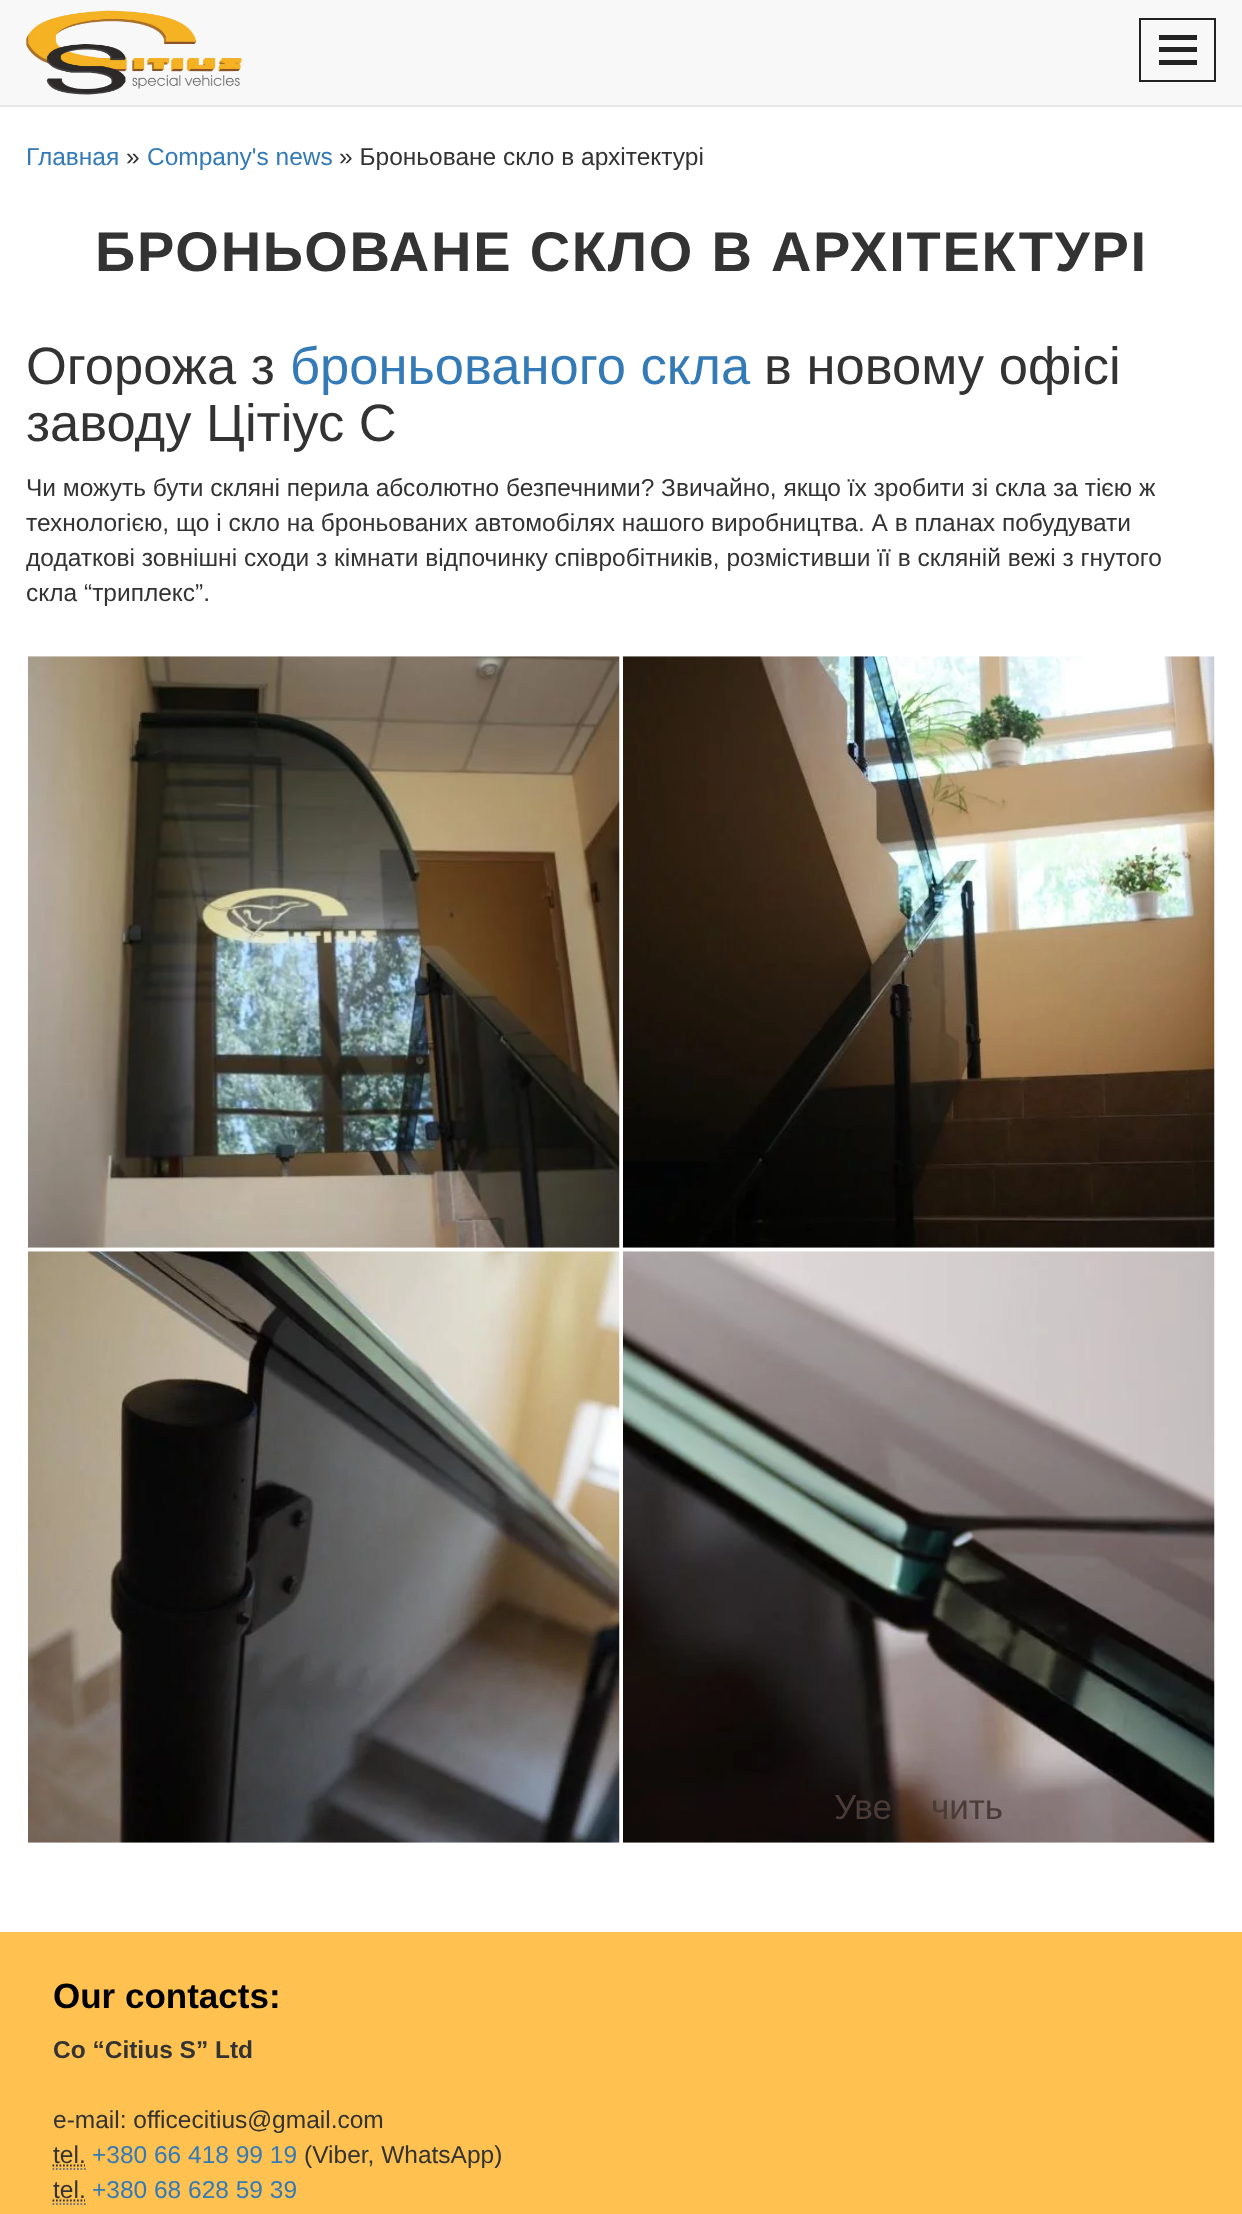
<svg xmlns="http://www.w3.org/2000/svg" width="1242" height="2214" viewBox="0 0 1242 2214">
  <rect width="100%" height="100%" fill="rgb(255,255,255)"/>
  <rect x="0" y="0" width="1242" height="105" fill="rgb(248,248,248)"/>
  <rect x="0" y="105" width="1242" height="2" fill="rgb(231,231,231)"/>
  <image x="26" y="10" width="216" height="85" href="pic1.png"/>
  <rect x="1140" y="19" width="75" height="62" fill="none" stroke="rgb(34,34,34)" stroke-width="2"/>
  <rect x="1159" y="35" width="38" height="5" fill="rgb(34,34,34)"/>
  <rect x="1159" y="47" width="38" height="5" fill="rgb(34,34,34)"/>
  <rect x="1159" y="60" width="38" height="5" fill="rgb(34,34,34)"/>
  <text x="26" y="165" font-family="Liberation Sans" font-size="24.5" fill="rgb(51,122,183)">Главная</text>
  <text x="126" y="165" font-family="Liberation Sans" font-size="24.5" fill="rgb(51,51,51)">»</text>
  <text x="147" y="165" font-family="Liberation Sans" font-size="24.5" fill="rgb(51,122,183)">Company's news</text>
  <text x="339" y="165" font-family="Liberation Sans" font-size="24.5" fill="rgb(51,51,51)">» Броньоване скло в архітектурі</text>
  <text x="95" y="271" font-family="Liberation Sans" font-size="56" font-weight="bold" letter-spacing="1.75" fill="rgb(51,51,51)">БРОНЬОВАНЕ СКЛО В АРХІТЕКТУРІ</text>
  <text x="26" y="384" font-family="Liberation Sans" font-size="52.5" fill="rgb(51,51,51)">Огорожа з</text>
  <text x="290" y="384" font-family="Liberation Sans" font-size="52.5" fill="rgb(51,122,183)">броньованого скла</text>
  <g font-family="Liberation Sans" font-size="52.5" fill="rgb(51,51,51)">
    <text x="764" y="384">в новому офісі</text>
    <text x="26" y="441">заводу Цітіус С</text>
  </g>
  <g font-family="Liberation Sans" font-size="24.5" fill="rgb(51,51,51)">
    <text>
      <tspan x="26" y="496">Чи можуть бути скляні перила абсолютно безпечними? Звичайно, якщо їх зробити зі скла за тією ж</tspan>
      <tspan x="26" y="531">технологією, що і скло на броньованих автомобілях нашого виробництва. А в планах побудувати</tspan>
      <tspan x="26" y="566">додаткові зовнішні сходи з кімнати відпочинку співробітників, розмістивши її в скляній вежі з гнутого</tspan>
      <tspan x="26" y="601">скла “триплекс”.</tspan>
    </text>
  </g>
  <image x="28" y="656" width="592" height="592" href="pic2.png"/>
  <image x="623" y="656" width="592" height="592" href="pic3.png"/>
  <image x="28" y="1251" width="592" height="592" href="pic4.png"/>
  <image x="623" y="1251" width="592" height="592" href="pic5.png"/>
  <g font-family="Liberation Sans" font-size="35" fill="rgb(74,59,55)">
    <text x="834" y="1819">Уве</text>
    <text x="931" y="1819">чить</text>
  </g>
  <rect x="0" y="1932" width="1242" height="282" fill="rgb(255,193,80)"/>
  <text x="53" y="2008" font-family="Liberation Sans" font-size="35" font-weight="bold" fill="rgb(0,0,0)">Our contacts:</text>
  <text x="53" y="2058" font-family="Liberation Sans" font-size="24.5" font-weight="bold" fill="rgb(51,51,51)">Co “Citius S” Ltd</text>
  <g font-family="Liberation Sans" font-size="24.5" fill="rgb(51,51,51)">
    <text>
      <tspan x="53" y="2128">e-mail: officecitius@gmail.com</tspan>
      <tspan x="53" y="2163">tel.</tspan>
    </text>
  </g>
  <path d="M52.5 2169H86" fill="none" stroke="rgb(119,119,119)" stroke-width="1.8" stroke-dasharray="1.75 1.75"/>
  <path d="M52.5 2165.5H85" fill="none" stroke="rgb(51,51,51)" stroke-width="1.8" stroke-dasharray="1.75 1.75"/>
  <text x="92" y="2163" font-family="Liberation Sans" font-size="24.5" fill="rgb(51,122,183)">+380 66 418 99 19</text>
  <g font-family="Liberation Sans" font-size="24.5" fill="rgb(51,51,51)">
    <text x="304" y="2163">(Viber, WhatsApp)</text>
    <text x="53" y="2198">tel.</text>
  </g>
  <path d="M52.5 2204H86" fill="none" stroke="rgb(119,119,119)" stroke-width="1.8" stroke-dasharray="1.75 1.75"/>
  <path d="M52.5 2200.5H85" fill="none" stroke="rgb(51,51,51)" stroke-width="1.8" stroke-dasharray="1.75 1.75"/>
  <text x="92" y="2198" font-family="Liberation Sans" font-size="24.5" fill="rgb(51,122,183)">+380 68 628 59 39</text>
</svg>
